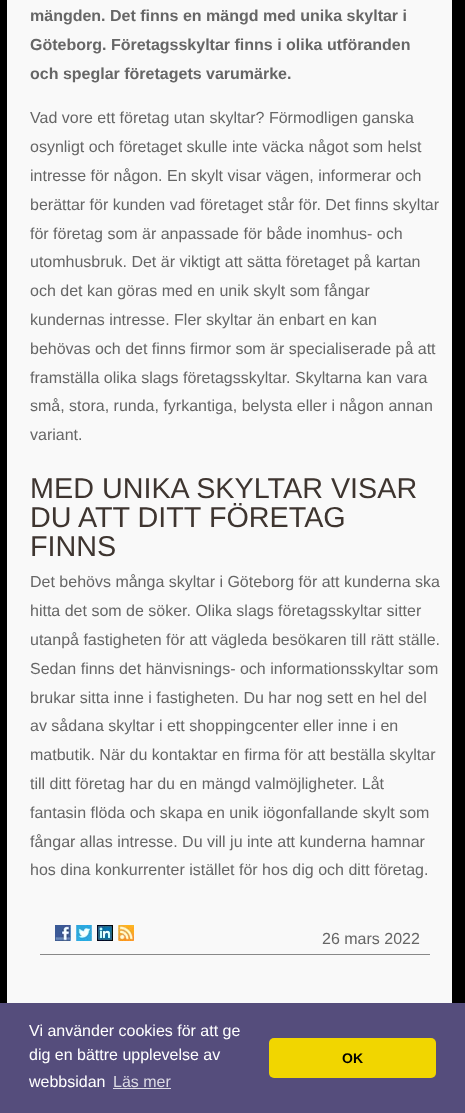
<svg xmlns="http://www.w3.org/2000/svg" width="465" height="1113" viewBox="0 0 465 1113">
  <rect width="100%" height="100%" fill="rgb(0,0,0)"/>
  <rect x="7" y="0" width="445" height="1003" fill="rgb(249,249,249)"/>
  <g font-family="Liberation Sans" font-size="16" font-weight="bold" fill="rgb(102,102,102)">
    <text>
      <tspan x="30" y="21">mängden. Det finns en mängd med unika skyltar i</tspan>
      <tspan x="30" y="50">Göteborg. Företagsskyltar finns i olika utföranden</tspan>
      <tspan x="30" y="79">och speglar företagets varumärke.</tspan>
    </text>
  </g>
  <g font-family="Liberation Sans" font-size="16" fill="rgb(102,102,102)">
    <text>
      <tspan x="30" y="123">Vad vore ett företag utan skyltar? Förmodligen ganska</tspan>
      <tspan x="30" y="152">osynligt och företaget skulle inte väcka något som helst</tspan>
      <tspan x="30" y="181">intresse för någon. En skylt visar vägen, informerar och</tspan>
      <tspan x="30" y="210">berättar för kunden vad företaget står för. Det finns skyltar</tspan>
      <tspan x="30" y="239">för företag som är anpassade för både inomhus- och</tspan>
      <tspan x="30" y="267">utomhusbruk. Det är viktigt att sätta företaget på kartan</tspan>
      <tspan x="30" y="296">och det kan göras med en unik skylt som fångar</tspan>
      <tspan x="30" y="325">kundernas intresse. Fler skyltar än enbart en kan</tspan>
      <tspan x="30" y="354">behövas och det finns firmor som är specialiserade på att</tspan>
      <tspan x="30" y="383">framställa olika slags företagsskyltar. Skyltarna kan vara</tspan>
      <tspan x="30" y="411">små, stora, runda, fyrkantiga, belysta eller i någon annan</tspan>
      <tspan x="30" y="440">variant.</tspan>
    </text>
  </g>
  <g font-family="Liberation Sans" font-size="28.75" fill="rgb(62,53,48)">
    <text>
      <tspan x="30" y="498">MED UNIKA SKYLTAR VISAR</tspan>
      <tspan x="30" y="527">DU ATT DITT FÖRETAG</tspan>
      <tspan x="30" y="556">FINNS</tspan>
    </text>
  </g>
  <g font-family="Liberation Sans" font-size="16" fill="rgb(102,102,102)">
    <text>
      <tspan x="30" y="587">Det behövs många skyltar i Göteborg för att kunderna ska</tspan>
      <tspan x="30" y="616">hitta det som de söker. Olika slags företagsskyltar sitter</tspan>
      <tspan x="30" y="645">utanpå fastigheten för att vägleda besökaren till rätt ställe.</tspan>
      <tspan x="30" y="674">Sedan finns det hänvisnings- och informationsskyltar som</tspan>
      <tspan x="30" y="703">brukar sitta inne i fastigheten. Du har nog sett en hel del</tspan>
      <tspan x="30" y="731">av sådana skyltar i ett shoppingcenter eller inne i en</tspan>
      <tspan x="30" y="760">matbutik. När du kontaktar en firma för att beställa skyltar</tspan>
      <tspan x="30" y="789">till ditt företag har du en mängd valmöjligheter. Låt</tspan>
      <tspan x="30" y="818">fantasin flöda och skapa en unik iögonfallande skylt som</tspan>
      <tspan x="30" y="847">fångar allas intresse. Du vill ju inte att kunderna hamnar</tspan>
      <tspan x="30" y="875">hos dina konkurrenter istället för hos dig och ditt företag.</tspan>
    </text>
  </g>
  <image x="55" y="925" width="16" height="16" href="pic1.png"/>
  <image x="76" y="925" width="16" height="16" href="pic2.png"/>
  <image x="97" y="925" width="16" height="16" href="pic3.png"/>
  <image x="118" y="925" width="16" height="16" href="pic4.png"/>
  <text x="322" y="944" font-family="Liberation Sans" font-size="16" fill="rgb(102,102,102)">26 mars 2022</text>
  <rect x="40" y="954" width="390" height="1" fill="rgb(136,136,136)"/>
  <rect x="0" y="1003" width="465" height="110" fill="rgb(85,77,124)"/>
  <g font-family="Liberation Sans" font-size="16" fill="rgb(255,255,255)">
    <text>
      <tspan x="29" y="1036">Vi använder cookies för att ge</tspan>
      <tspan x="29" y="1060">dig en bättre upplevelse av</tspan>
      <tspan x="29" y="1087">webbsidan</tspan>
    </text>
  </g>
  <text x="113" y="1087" font-family="Liberation Sans" font-size="16" fill="rgb(221,219,229)">Läs mer</text>
  <rect x="113" y="1088" width="58" height="1" fill="rgb(221,219,229)"/>
  <rect x="269" y="1038" width="167" height="40" rx="5" fill="rgb(241,214,0)"/>
  <text x="342" y="1063" font-family="Liberation Sans" font-size="14" font-weight="bold" fill="rgb(0,0,0)">OK</text>
</svg>
